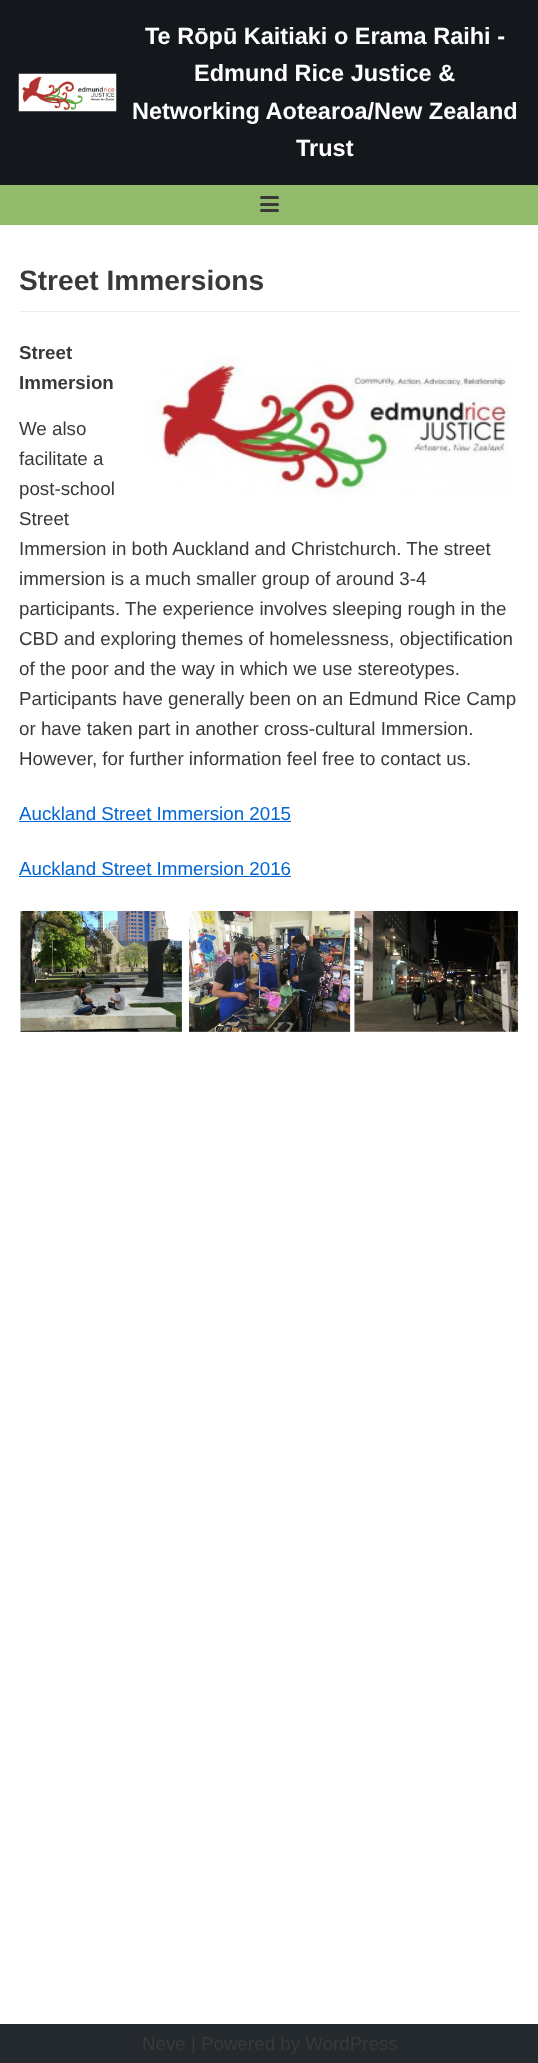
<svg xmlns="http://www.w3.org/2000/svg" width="538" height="2063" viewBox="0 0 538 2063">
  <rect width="100%" height="100%" fill="rgb(255,255,255)"/>
  <rect x="0" y="-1" width="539" height="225" fill="rgba(0,0,0,0.1)" filter="blur(2px)"/>
  <rect x="0" y="0" width="538" height="185" fill="rgb(20,23,28)"/>
  <image x="18" y="73" width="99" height="39" href="pic1.png"/>
  <g font-family="Liberation Sans" font-size="23.5" font-weight="bold" fill="rgb(255,255,255)">
    <text x="145" y="44">Te Rōpū Kaitiaki o Erama Raihi -</text>
    <text x="194" y="81">Edmund Rice Justice &amp;</text>
    <text x="132" y="119">Networking Aotearoa/New Zealand</text>
    <text x="296" y="156">Trust</text>
  </g>
  <rect x="0" y="185" width="538" height="40" fill="rgb(146,188,108)"/>
  <rect x="260" y="196" width="19" height="3" rx="1.5" fill="rgb(57,57,57)"/>
  <rect x="260" y="203" width="19" height="3" rx="1.5" fill="rgb(57,57,57)"/>
  <rect x="260" y="209" width="19" height="3" rx="1.5" fill="rgb(57,57,57)"/>
  <rect x="19" y="311" width="501" height="1" fill="rgb(237,237,237)"/>
  <text x="19" y="290" font-family="Liberation Sans" font-size="28.1" font-weight="bold" fill="rgb(57,57,57)">Street Immersions</text>
  <g font-family="Liberation Sans" font-size="18.75" font-weight="bold" fill="rgb(57,57,57)">
    <text>
      <tspan x="19" y="359">Street</tspan>
      <tspan x="19" y="389">Immersion</tspan>
    </text>
  </g>
  <image x="145" y="357" width="365" height="141" href="pic2.png"/>
  <g font-family="Liberation Sans" font-size="18.75" fill="rgb(57,57,57)">
    <text>
      <tspan x="19" y="435">We also</tspan>
      <tspan x="19" y="465">facilitate a</tspan>
      <tspan x="19" y="495">post-school</tspan>
      <tspan x="19" y="525">Street</tspan>
      <tspan x="19" y="555">Immersion in both Auckland and Christchurch. The street</tspan>
      <tspan x="19" y="585">immersion is a much smaller group of around 3-4</tspan>
      <tspan x="19" y="615">participants. The experience involves sleeping rough in the</tspan>
      <tspan x="19" y="645">CBD and exploring themes of homelessness, objectification</tspan>
      <tspan x="19" y="675">of the poor and the way in which we use stereotypes.</tspan>
      <tspan x="19" y="705">Participants have generally been on an Edmund Rice Camp</tspan>
      <tspan x="19" y="735">or have taken part in another cross-cultural Immersion.</tspan>
      <tspan x="19" y="765">However, for further information feel free to contact us.</tspan>
    </text>
  </g>
  <text x="19" y="820" font-family="Liberation Sans" font-size="18.75" fill="rgb(3,102,214)">Auckland Street Immersion 2015</text>
  <rect x="19" y="821" width="272" height="1" fill="rgb(3,102,214)"/>
  <text x="19" y="875" font-family="Liberation Sans" font-size="18.75" fill="rgb(3,102,214)">Auckland Street Immersion 2016</text>
  <rect x="19" y="876" width="272" height="1" fill="rgb(3,102,214)"/>
  <image x="20" y="911" width="499" height="121" href="pic3.png"/>
  <rect x="0" y="2024" width="538" height="39" fill="rgb(36,41,46)"/>
  <text x="142" y="2050" font-family="Liberation Sans" font-size="18.75" fill="rgb(57,57,57)">Neve | Powered by WordPress</text>
</svg>
